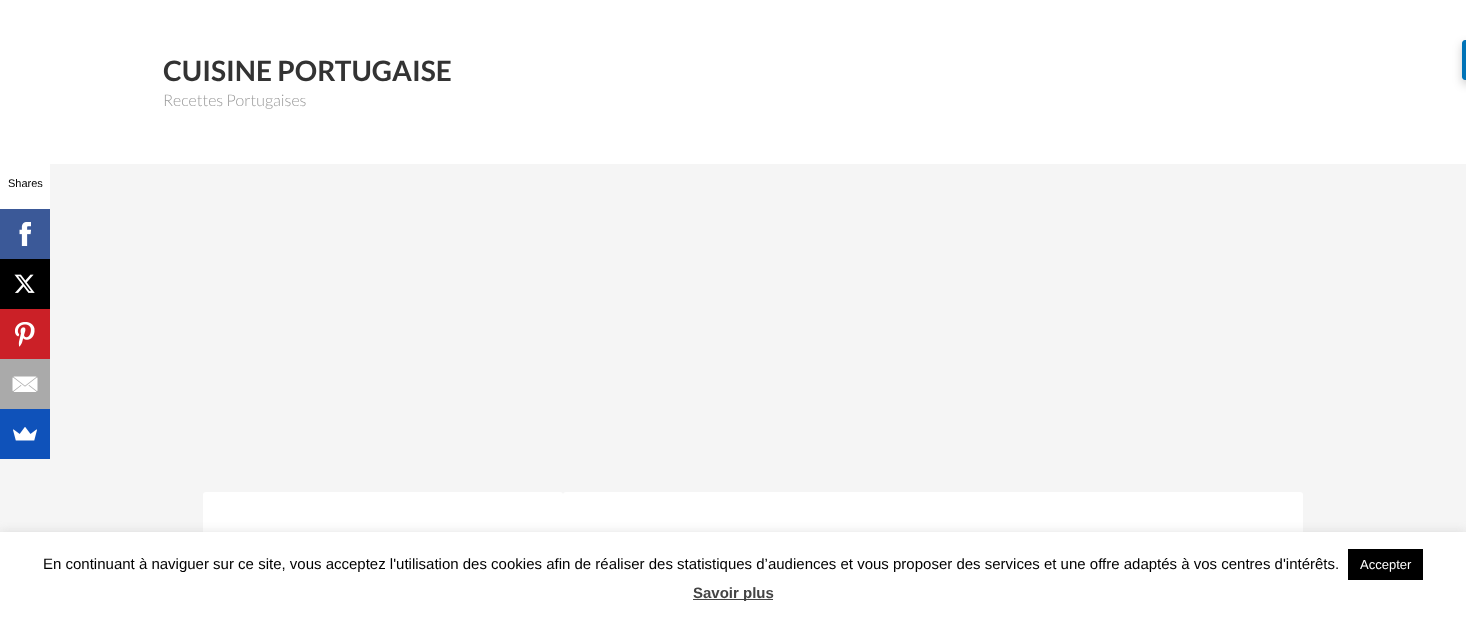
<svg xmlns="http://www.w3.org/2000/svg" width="1466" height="617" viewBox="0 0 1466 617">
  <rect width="100%" height="100%" fill="rgb(245,245,245)"/>
  <rect x="0" y="0" width="1466" height="164" fill="rgb(255,255,255)"/>
  <text x="163" y="81" font-family="Lato" font-size="28" font-weight="bold" fill="rgb(51,51,51)">CUISINE PORTUGAISE</text>
  <text x="163" y="106" font-family="Lato" font-size="16" font-weight="300" fill="rgb(153,153,153)">Recettes Portugaises</text>
  <rect x="203" y="492" width="360" height="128" rx="3" fill="rgb(255,255,255)"/>
  <rect x="563" y="492" width="740" height="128" rx="3" fill="rgb(255,255,255)"/>
  <rect x="1462" y="44" width="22" height="40" rx="3" fill="rgba(0,0,0,0.2)" filter="blur(5px)"/>
  <path d="M1465 40H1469V80H1465C1463.5 80 1462 78.5 1462 77V43C1462 41.5 1463.5 40 1465 40Z" fill="rgb(0,115,183)"/>
  <rect x="0" y="164" width="50" height="45" fill="rgb(255,255,255)"/>
  <text x="8" y="187" font-family="Liberation Sans" font-size="11" fill="rgb(0,0,0)">Shares</text>
  <rect x="0" y="209" width="50" height="50" fill="rgb(59,89,152)"/>
  <image x="19" y="222" width="12" height="24" href="pic1.png"/>
  <rect x="0" y="259" width="50" height="50" fill="rgb(0,0,0)"/>
  <image x="14" y="274" width="21" height="19" href="pic2.png"/>
  <rect x="0" y="309" width="50" height="50" fill="rgb(203,32,39)"/>
  <image x="15" y="322" width="20" height="25" href="pic3.png"/>
  <rect x="0" y="359" width="50" height="50" fill="rgb(170,170,170)"/>
  <image x="12" y="376" width="26" height="16" href="pic4.png"/>
  <rect x="0" y="409" width="50" height="50" fill="rgb(15,82,186)"/>
  <image x="13" y="427" width="24" height="14" href="pic5.png"/>
  <rect x="0" y="531" width="1466" height="85" fill="rgba(172,171,171,0.3)" filter="blur(5px)"/>
  <rect x="0" y="532" width="1466" height="85" fill="rgb(255,255,255)"/>
  <text x="43" y="569" font-family="Liberation Sans" font-size="15" fill="rgb(0,0,0)">En continuant à naviguer sur ce site, vous acceptez l'utilisation des cookies afin de réaliser des statistiques d’audiences et vous proposer des services et une offre adaptés à vos centres d'intérêts.</text>
  <rect x="1348" y="549" width="75" height="31" fill="rgb(0,0,0)"/>
  <text x="1360" y="569" font-family="Liberation Sans" font-size="13" fill="rgb(255,255,255)">Accepter</text>
  <rect x="693" y="599" width="80" height="1" fill="rgb(68,68,68)"/>
  <text x="693" y="598" font-family="Liberation Sans" font-size="15" font-weight="bold" fill="rgb(68,68,68)">Savoir plus</text>
</svg>
